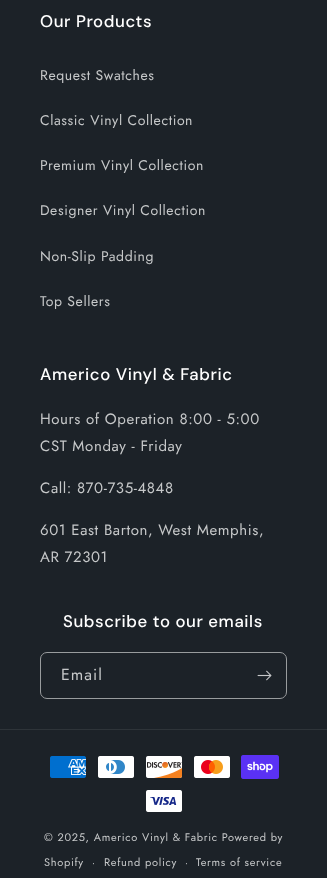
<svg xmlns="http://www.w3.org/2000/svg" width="327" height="878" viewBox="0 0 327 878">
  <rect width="100%" height="100%" fill="rgb(28,34,40)"/>
  <text x="40" y="27" font-family="DM Sans" font-size="16.75" font-weight="500" letter-spacing="0.6" fill="rgb(255,255,255)">Our Products</text>
  <g font-family="Jost" font-size="14" letter-spacing="0.6" fill="rgb(198,200,201)">
    <text x="40" y="80">Request Swatches</text>
    <text x="40" y="125">Classic Vinyl Collection</text>
    <text x="40" y="170">Premium Vinyl Collection</text>
    <text x="40" y="215">Designer Vinyl Collection</text>
    <text x="40" y="261">Non-Slip Padding</text>
    <text x="40" y="306">Top Sellers</text>
  </g>
  <text x="40" y="380" font-family="DM Sans" font-size="16.75" font-weight="500" letter-spacing="0.6" fill="rgb(255,255,255)">Americo Vinyl &amp; Fabric</text>
  <g font-family="Jost" font-size="15" letter-spacing="0.6" fill="rgb(198,200,201)">
    <text>
      <tspan x="40" y="424">Hours of Operation 8:00 - 5:00</tspan>
      <tspan x="40" y="451">CST Monday - Friday</tspan>
    </text>
    <text x="40" y="493">Call: 870-735-4848</text>
    <text>
      <tspan x="40" y="535">601 East Barton, West Memphis,</tspan>
      <tspan x="40" y="562">AR 72301</tspan>
    </text>
  </g>
  <text x="63" y="627" font-family="DM Sans" font-size="16.75" font-weight="500" letter-spacing="0.6" fill="rgb(255,255,255)">Subscribe to our emails</text>
  <rect x="40.5" y="652.5" width="246" height="46" rx="6.5" fill="none" stroke="rgb(153,156,158)"/>
  <text x="61" y="680" font-family="Jost" font-size="16" letter-spacing="1" fill="rgb(198,200,201)">Email</text>
  <image x="257" y="670" width="15" height="11" href="pic1.png"/>
  <rect x="0" y="729" width="327" height="1" fill="rgb(46,52,57)"/>
  <image x="50" y="756" width="36" height="22" href="pic2.png"/>
  <image x="98" y="756" width="36" height="22" href="pic3.png"/>
  <image x="146" y="756" width="36" height="22" href="pic4.png"/>
  <image x="194" y="756" width="36" height="22" href="pic5.png"/>
  <image x="241" y="755" width="38" height="24" href="pic6.png"/>
  <image x="146" y="790" width="36" height="22" href="pic7.png"/>
  <g font-family="Jost" font-size="11" letter-spacing="0.7" fill="rgb(198,200,201)">
    <text x="44" y="841">© 2025, Americo Vinyl &amp; Fabric Powered by</text>
    <text x="44" y="866">Shopify</text>
  </g>
  <text x="92" y="866" font-family="Jost" font-size="10" letter-spacing="0.7" fill="rgb(198,200,201)">·</text>
  <text x="104" y="866" font-family="Jost" font-size="11" letter-spacing="0.7" fill="rgb(198,200,201)">Refund policy</text>
  <text x="185" y="866" font-family="Jost" font-size="10" letter-spacing="0.7" fill="rgb(198,200,201)">·</text>
  <text x="196" y="866" font-family="Jost" font-size="11" letter-spacing="0.7" fill="rgb(198,200,201)">Terms of service</text>
</svg>
